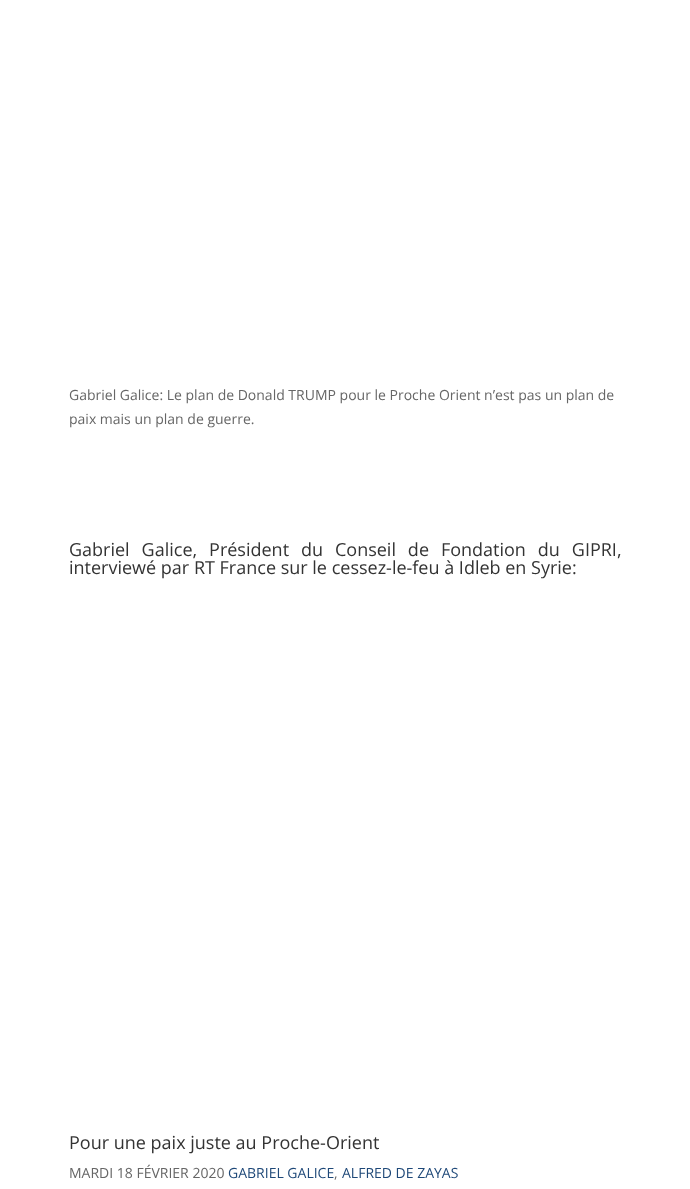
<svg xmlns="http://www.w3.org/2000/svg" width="690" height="1189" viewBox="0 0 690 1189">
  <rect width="100%" height="100%" fill="rgb(255,255,255)"/>
  <g font-family="Open Sans" font-size="14" fill="rgb(102,102,102)">
    <text>
      <tspan x="69" y="400">Gabriel Galice: Le plan de Donald TRUMP pour le Proche Orient n’est pas un plan de</tspan>
      <tspan x="69" y="424">paix mais un plan de guerre.</tspan>
    </text>
  </g>
  <g font-family="Open Sans" font-size="18" fill="rgb(51,51,51)">
    <text>
      <tspan x="69" y="556" word-spacing="7.25">Gabriel Galice, Président du Conseil de Fondation du GIPRI,</tspan>
      <tspan x="69" y="574">interviewé par RT France sur le cessez-le-feu à Idleb en Syrie:</tspan>
    </text>
    <text x="69" y="1149">Pour une paix juste au Proche-Orient</text>
  </g>
  <text x="69" y="1178" font-family="Open Sans" font-size="14" fill="rgb(102,102,102)">MARDI 18 FÉVRIER 2020</text>
  <text x="228" y="1178" font-family="Open Sans" font-size="14" fill="rgb(30,72,120)">GABRIEL GALICE</text>
  <text x="334" y="1178" font-family="Open Sans" font-size="14" fill="rgb(102,102,102)">,</text>
  <text x="342" y="1178" font-family="Open Sans" font-size="14" fill="rgb(30,72,120)">ALFRED DE ZAYAS</text>
</svg>
